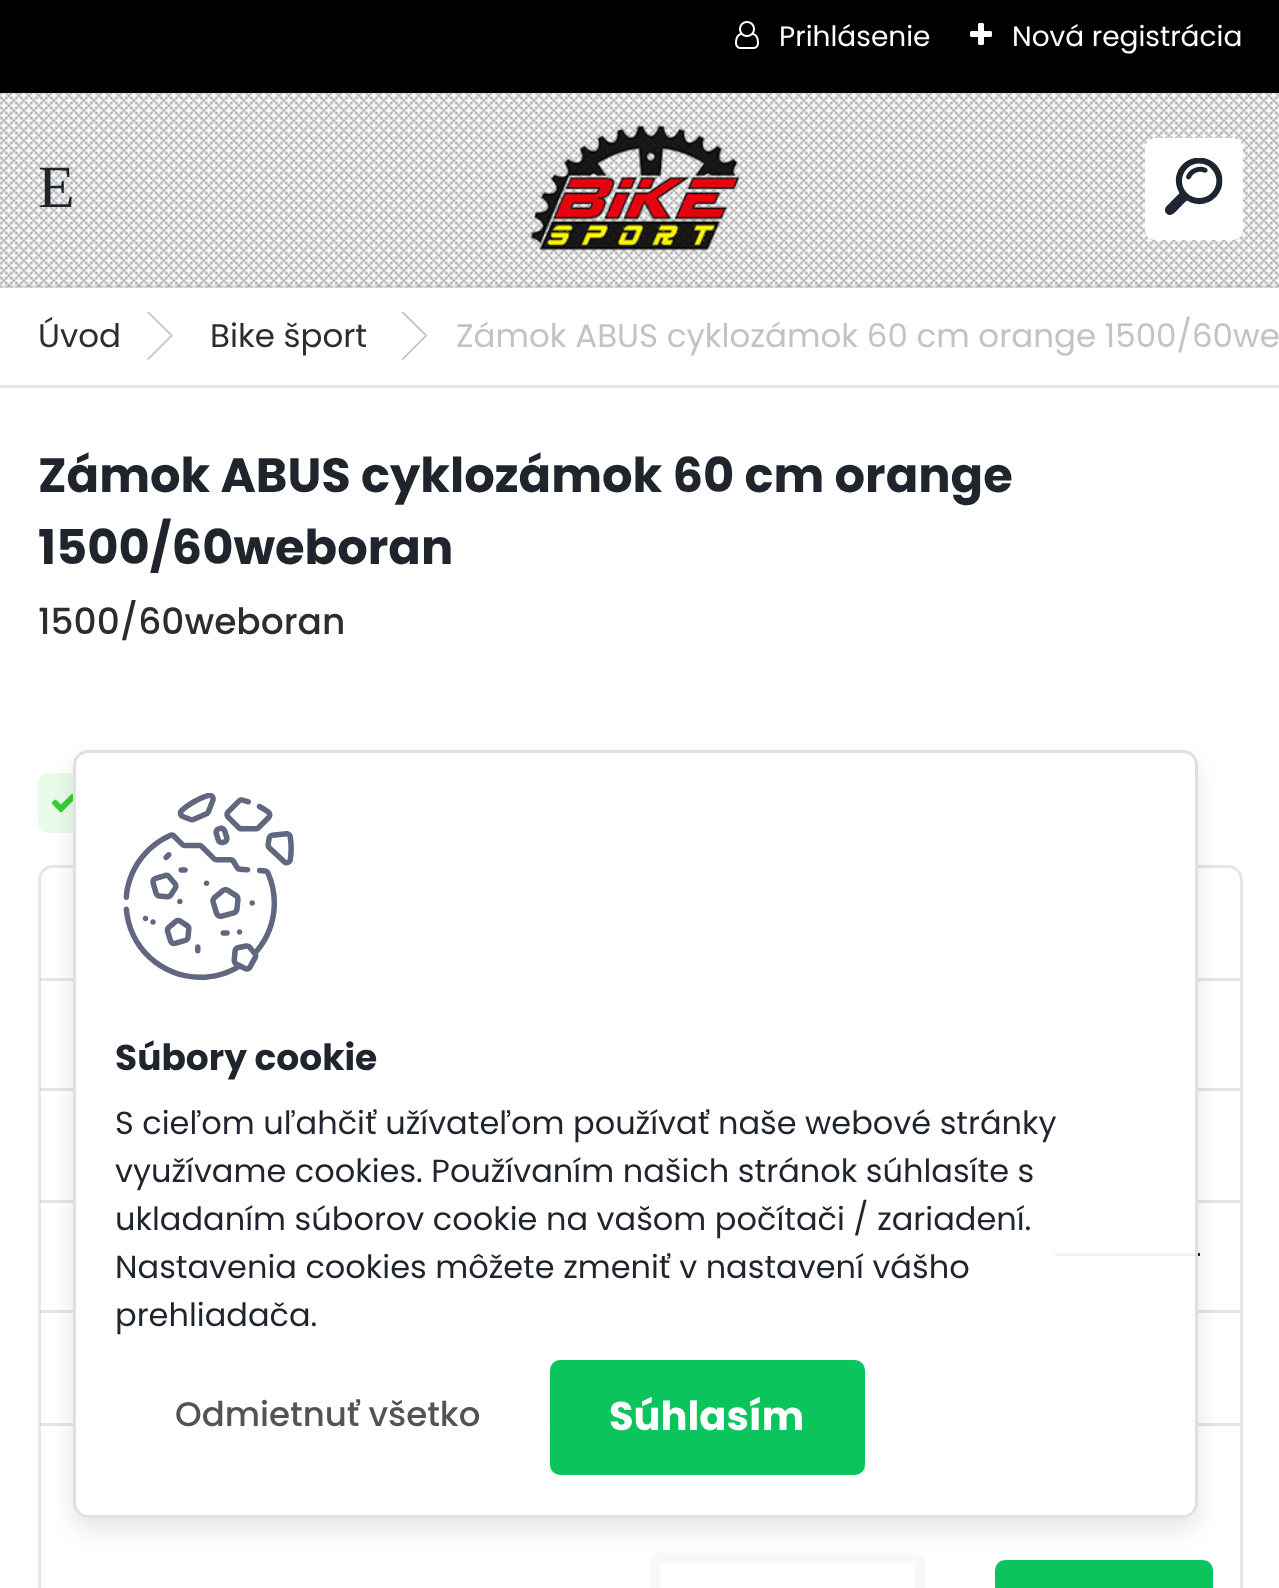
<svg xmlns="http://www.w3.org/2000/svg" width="1279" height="1588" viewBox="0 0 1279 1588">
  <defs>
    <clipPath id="clip1"><path d="M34 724H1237V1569H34ZM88 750H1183C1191.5 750 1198 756.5 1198 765V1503C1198 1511.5 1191.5 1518 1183 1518H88C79.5 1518 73 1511.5 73 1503V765C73 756.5 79.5 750 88 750Z" clip-rule="evenodd"/></clipPath>
  </defs>
  <rect width="100%" height="100%" fill="rgb(255,255,255)"/>
  <rect x="0" y="0" width="1279" height="93" fill="rgb(0,0,0)"/>
  <image x="735" y="21" width="24" height="28" href="pic1.png"/>
  <text x="779" y="46" font-family="Poppins" font-size="28" fill="rgb(255,255,255)">Prihlásenie</text>
  <image x="970" y="23" width="22" height="22" href="pic2.png"/>
  <text x="1012" y="46" font-family="Poppins" font-size="28" fill="rgb(255,255,255)">Nová registrácia</text>
  <image x="0" y="92" width="1279" height="196" href="pic3.png"/>
  <rect x="0" y="285" width="1279" height="3" fill="rgba(0,0,0,0.1)"/>
  <text x="38" y="207" font-family="Liberation Serif" font-size="60" fill="rgb(31,36,45)">E</text>
  <image x="530" y="125" width="210" height="126" href="pic4.png"/>
  <rect x="1145" y="138" width="98" height="102" rx="10" fill="rgb(255,255,255)"/>
  <image x="1165" y="158" width="58" height="57" href="pic5.png"/>
  <rect x="0" y="385" width="1279" height="3" fill="rgb(230,230,230)"/>
  <text x="38" y="347" font-family="Poppins" font-size="32.5" fill="rgb(45,45,45)">Úvod</text>
  <path d="M146.5 312H149L173 335.5H170.5Z" fill="rgb(195,195,195)"/>
  <path d="M170.5 335.5H173L149 359.5H146.5Z" fill="rgb(195,195,195)"/>
  <text x="210" y="347" font-family="Poppins" font-size="32.5" fill="rgb(45,45,45)">Bike šport</text>
  <path d="M401 312H403.5L427.5 335.5H425Z" fill="rgb(195,195,195)"/>
  <path d="M425 335.5H427.5L403.5 359.5H401Z" fill="rgb(195,195,195)"/>
  <text x="456" y="347" font-family="Poppins" font-size="32.5" fill="rgb(195,195,195)">Zámok ABUS cyklozámok 60 cm orange 1500/60we</text>
  <g font-family="Poppins" font-size="48" font-weight="bold" fill="rgb(31,36,45)">
    <text>
      <tspan x="38" y="492">Zámok ABUS cyklozámok 60 cm orange</tspan>
      <tspan x="38" y="564">1500/60weboran</tspan>
    </text>
  </g>
  <text x="38" y="634" font-family="Poppins" font-size="36" font-weight="500" fill="rgb(45,45,45)">1500/60weboran</text>
  <rect x="38" y="773" width="200" height="60" rx="10" fill="rgb(235,251,234)"/>
  <image x="51" y="794" width="22" height="19" href="pic6.png"/>
  <rect x="39.5" y="866.5" width="1202" height="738" rx="13.5" fill="none" stroke="rgb(230,230,230)" stroke-width="3"/>
  <rect x="40" y="978" width="1200" height="3" fill="rgba(0,0,0,0.1)"/>
  <rect x="40" y="1088" width="1200" height="3" fill="rgba(0,0,0,0.1)"/>
  <rect x="40" y="1200" width="1200" height="3" fill="rgba(0,0,0,0.1)"/>
  <rect x="40" y="1310" width="1200" height="3" fill="rgba(0,0,0,0.1)"/>
  <rect x="1055" y="1253" width="145" height="3" fill="rgb(31,36,45)"/>
  <rect x="40" y="1423" width="1200" height="3" fill="rgba(0,0,0,0.1)"/>
  <rect x="655" y="1558" width="265" height="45" rx="5" fill="none" stroke="rgb(248,248,248)" stroke-width="10"/>
  <rect x="995" y="1560" width="218" height="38" rx="10" fill="rgb(11,196,92)"/>
  <g clip-path="url(#clip1)">
    <rect x="73" y="763" width="1125" height="767" rx="15" fill="rgba(0,0,0,0.1)" filter="blur(12.5px)"/>
  </g>
  <rect x="74.5" y="751.5" width="1122" height="765" rx="13.5" fill="rgba(255,255,255,0.95)" stroke="rgb(224,224,224)" stroke-width="3"/>
  <image x="123" y="793" width="171" height="187" href="pic7.png"/>
  <text x="115" y="1070" font-family="Poppins" font-size="36" font-weight="bold" fill="rgb(31,36,45)">Súbory cookie</text>
  <g font-family="Poppins" font-size="32" fill="rgb(31,36,45)">
    <text>
      <tspan x="115" y="1134">S cieľom uľahčiť užívateľom používať naše webové stránky</tspan>
      <tspan x="115" y="1182">využívame cookies. Používaním našich stránok súhlasíte s</tspan>
      <tspan x="115" y="1230">ukladaním súborov cookie na vašom počítači / zariadení.</tspan>
      <tspan x="115" y="1278">Nastavenia cookies môžete zmeniť v nastavení vášho</tspan>
      <tspan x="115" y="1326">prehliadača.</tspan>
    </text>
  </g>
  <text x="175" y="1426" font-family="Poppins" font-size="34" font-weight="500" fill="rgb(83,83,83)">Odmietnuť všetko</text>
  <rect x="550" y="1360" width="315" height="115" rx="10" fill="rgb(11,196,92)"/>
  <text x="609" y="1430" font-family="Poppins" font-size="40" font-weight="bold" fill="rgb(255,255,255)">Súhlasím</text>
</svg>
